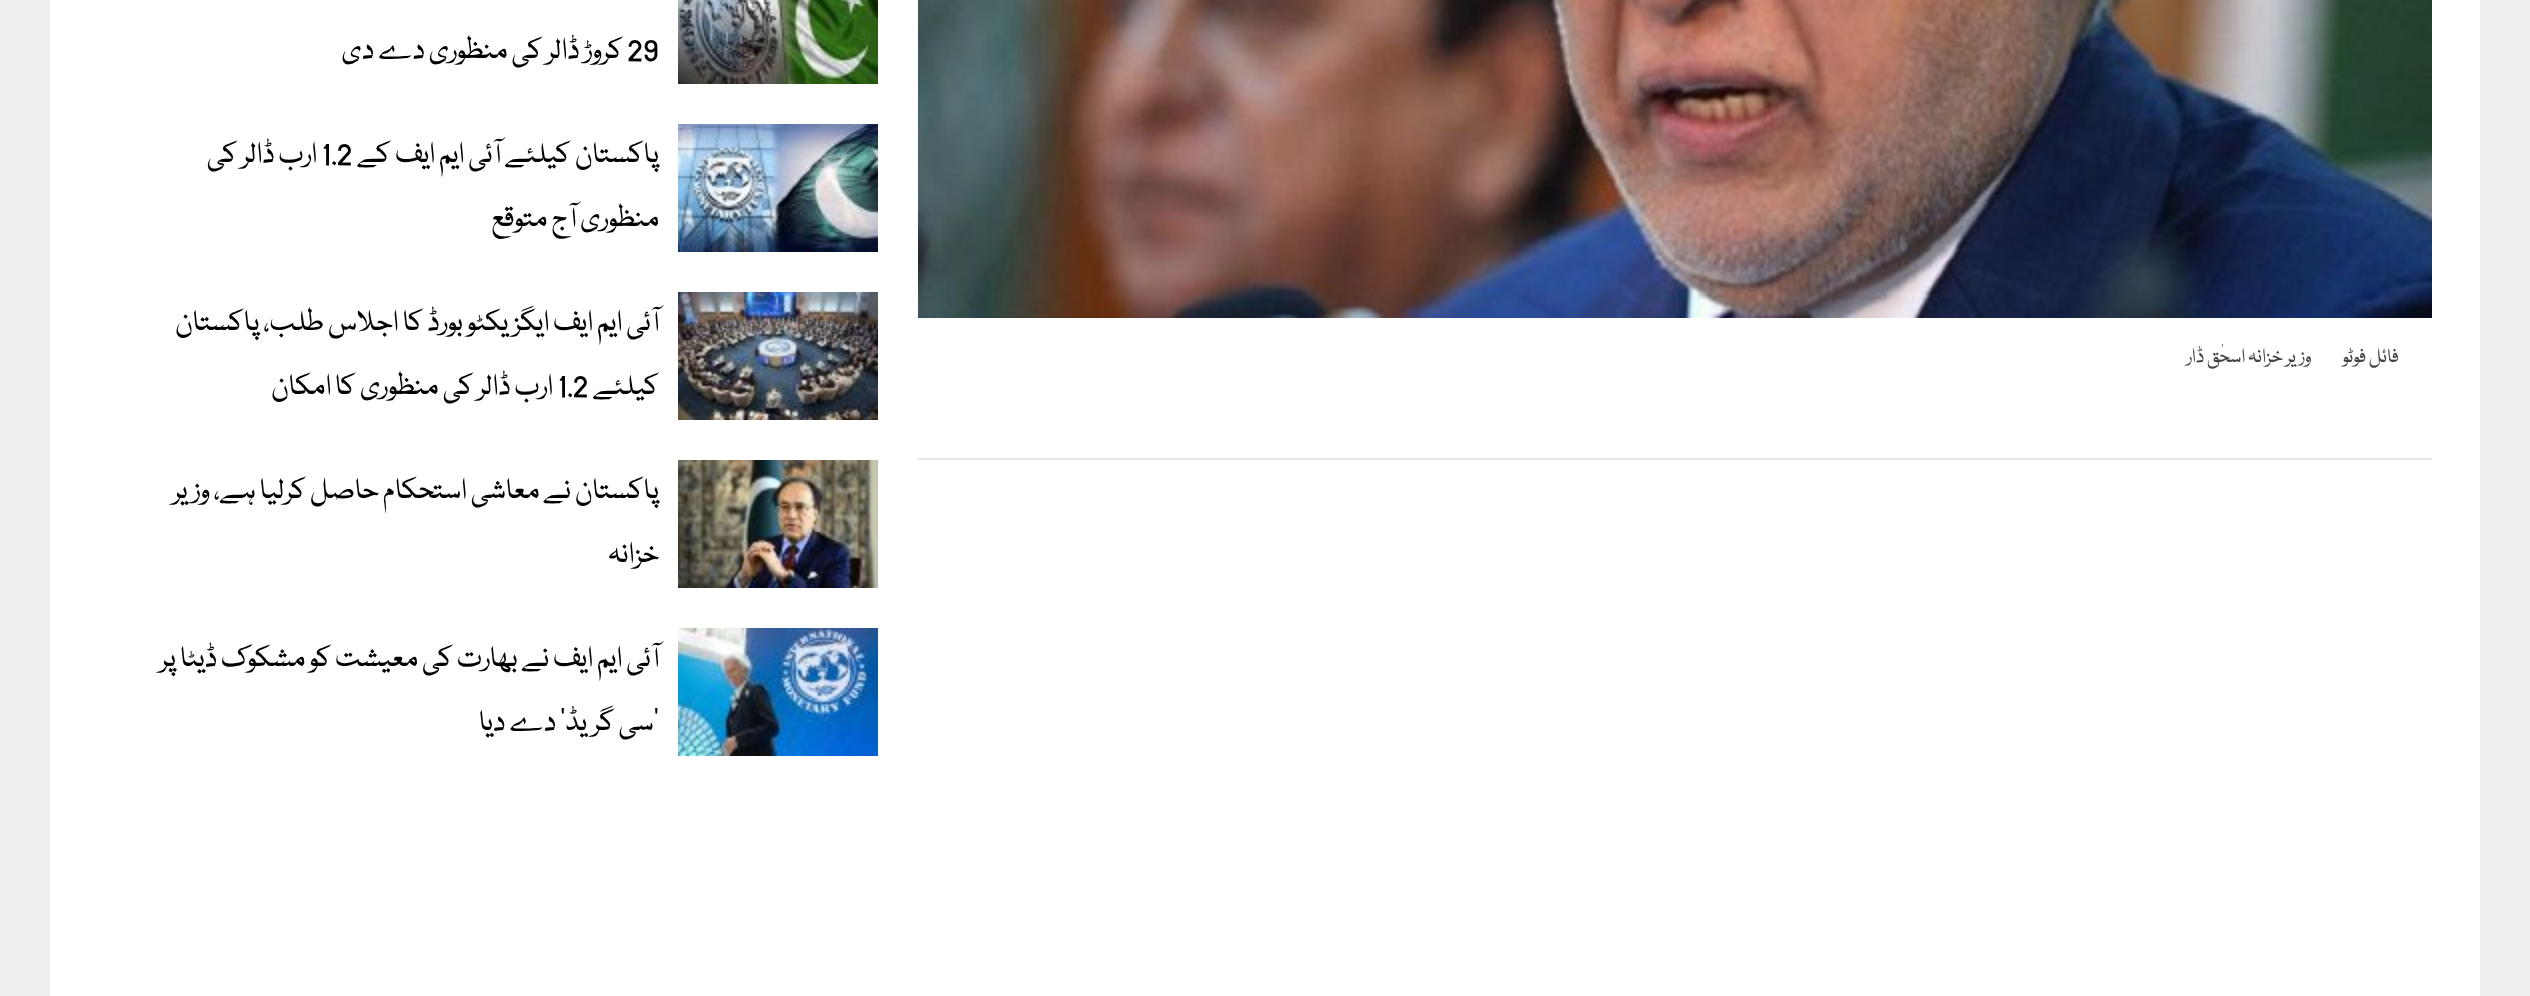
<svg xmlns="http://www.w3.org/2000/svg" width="2530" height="996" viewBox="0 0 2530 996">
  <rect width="100%" height="100%" fill="rgb(239,239,239)"/>
  <rect x="50" y="0" width="2430" height="996" fill="rgb(255,255,255)"/>
  <image x="918" y="0" width="1514" height="318" href="pic1.png"/>
  <g font-family="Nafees" font-size="22" direction="rtl" fill="rgb(68,68,68)">
    <text x="2399" y="362">فائل فوٹو</text>
    <text x="2311" y="362">وزیر خزانہ اسحٰق ڈار</text>
  </g>
  <rect x="918" y="458" width="1514" height="2" fill="rgb(229,229,229)"/>
  <image x="678" y="0" width="200" height="84" href="pic2.png"/>
  <text x="627" y="58" font-family="Nafees" font-size="32" fill="rgb(0,0,0)">29</text>
  <text x="623" y="58" font-family="Nafees" font-size="32" direction="rtl" fill="rgb(0,0,0)">کروڑ ڈالر کی منظوری دے دی</text>
  <image x="678" y="124" width="200" height="128" href="pic3.png"/>
  <text x="659" y="162" font-family="Nafees" font-size="32" direction="rtl" fill="rgb(0,0,0)">پاکستان کیلئے آئی ایم ایف کے</text>
  <text x="321" y="162" font-family="Nafees" font-size="32" fill="rgb(0,0,0)">1.2</text>
  <g font-family="Nafees" font-size="32" direction="rtl" fill="rgb(0,0,0)">
    <text x="317" y="162">ارب ڈالر کی</text>
    <text x="659" y="226">منظوری آج متوقع</text>
  </g>
  <image x="678" y="292" width="200" height="128" href="pic4.png"/>
  <g font-family="Nafees" font-size="32" direction="rtl" fill="rgb(0,0,0)">
    <text x="659" y="330">آئی ایم ایف ایگزیکٹو بورڈ کا اجلاس طلب، پاکستان</text>
    <text x="659" y="394">کیلئے</text>
  </g>
  <text x="557" y="394" font-family="Nafees" font-size="32" fill="rgb(0,0,0)">1.2</text>
  <text x="553" y="394" font-family="Nafees" font-size="32" direction="rtl" fill="rgb(0,0,0)">ارب ڈالر کی منظوری کا امکان</text>
  <image x="678" y="460" width="200" height="128" href="pic5.png"/>
  <g font-family="Nafees" font-size="32" direction="rtl" fill="rgb(0,0,0)">
    <text x="659" y="498">پاکستان نے معاشی استحکام حاصل کرلیا ہے، وزیر</text>
    <text x="659" y="562">خزانہ</text>
  </g>
  <image x="678" y="628" width="200" height="128" href="pic6.png"/>
  <g font-family="Nafees" font-size="32" direction="rtl" fill="rgb(0,0,0)">
    <text x="659" y="666">آئی ایم ایف نے بھارت کی معیشت کو مشکوک ڈیٹا پر</text>
    <text x="659" y="730">’سی گریڈ‘ دے دیا</text>
  </g>
</svg>
